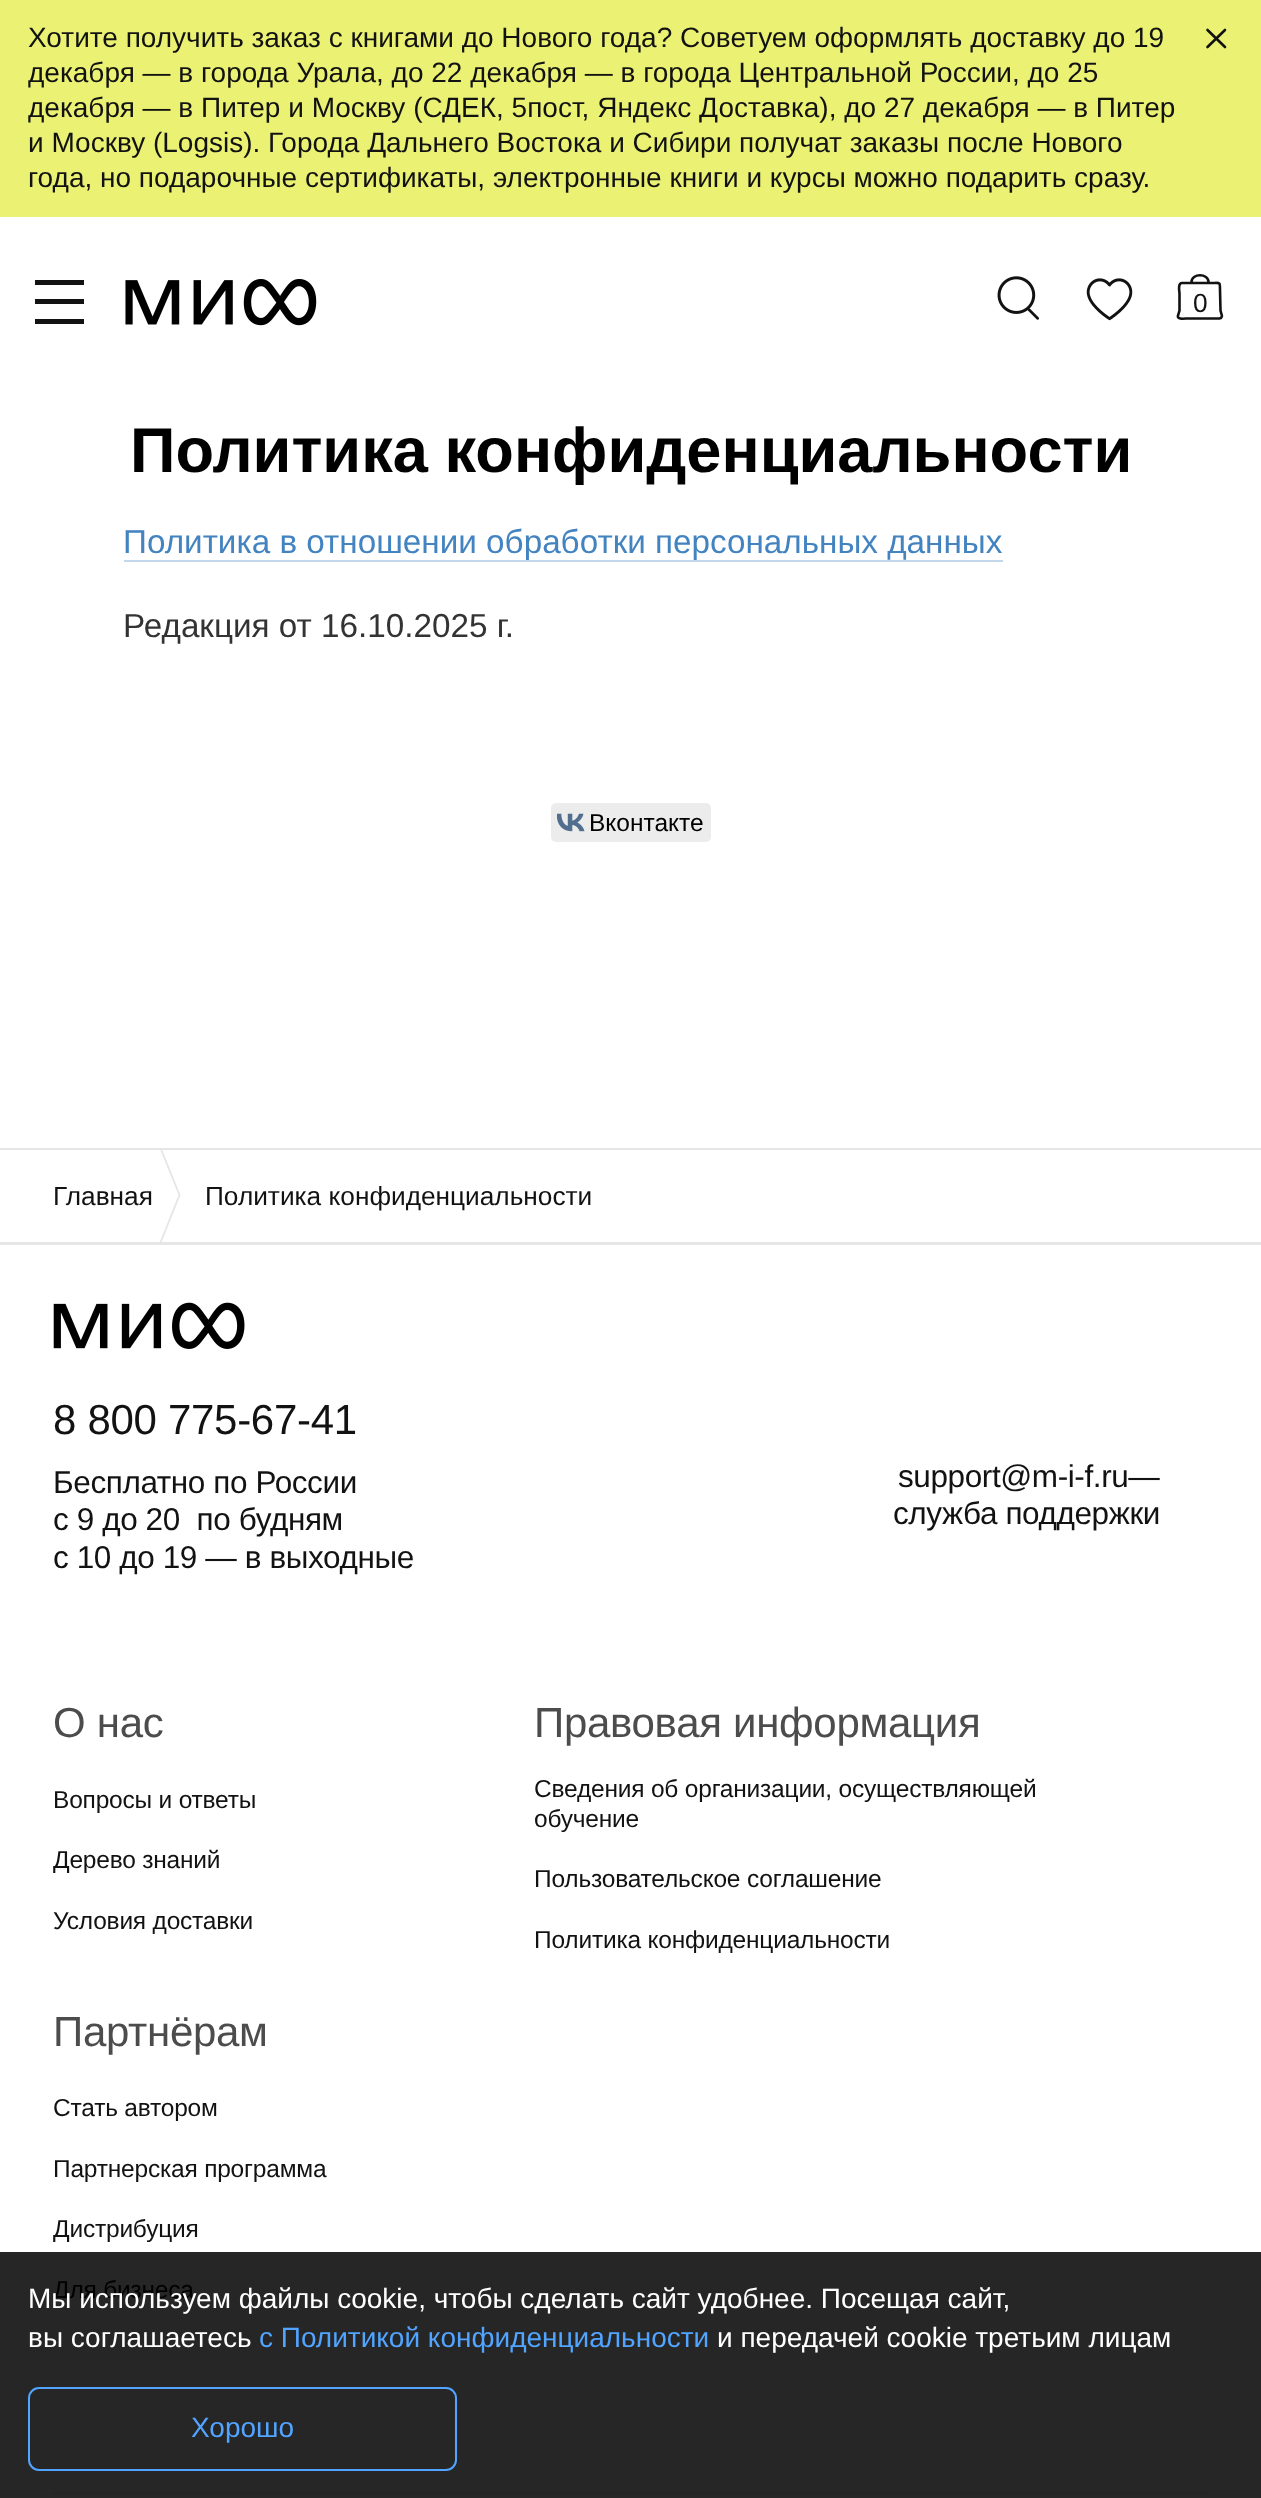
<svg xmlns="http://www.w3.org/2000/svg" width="1261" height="2498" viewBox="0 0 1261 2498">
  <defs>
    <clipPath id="clip1"><path d="M1176 273H1223.5V320.5H1176Z"/></clipPath>
    <clipPath id="clip2"><rect x="159" y="1150" width="23" height="93"/></clipPath>
  </defs>
  <rect width="100%" height="100%" fill="rgb(255,255,255)"/>
  <rect x="0" y="2252" width="1261" height="246" fill="rgb(38,38,38)"/>
  <rect x="0" y="0" width="1261" height="217" fill="rgb(234,241,115)"/>
  <g font-family="Liberation Sans" font-size="28" fill="rgb(18,18,18)">
    <text>
      <tspan x="28" y="47">Хотите получить заказ с книгами до Нового года? Советуем оформлять доставку до 19</tspan>
      <tspan x="28" y="82">декабря — в города Урала, до 22 декабря — в города Центральной России, до 25</tspan>
      <tspan x="28" y="117">декабря — в Питер и Москву (СДЕК, 5пост, Яндекс Доставка), до 27 декабря — в Питер</tspan>
      <tspan x="28" y="152">и Москву (Logsis). Города Дальнего Востока и Сибири получат заказы после Нового</tspan>
      <tspan x="28" y="187">года, но подарочные сертификаты, электронные книги и курсы можно подарить сразу.</tspan>
    </text>
  </g>
  <path d="M1225 30L1207.5 47M1207.5 30L1225 47" fill="none" stroke="rgb(18,18,18)" stroke-width="2.6" stroke-linecap="round" stroke-linejoin="round"/>
  <rect x="35" y="299" width="49" height="5" fill="rgb(18,18,18)"/>
  <rect x="35" y="280" width="49" height="5" fill="rgb(18,18,18)"/>
  <rect x="35" y="319" width="49" height="5" fill="rgb(18,18,18)"/>
  <image x="125" y="279" width="192" height="47" href="pic1.png"/>
  <image x="997" y="276" width="42" height="44" href="pic2.png"/>
  <image x="1086" y="278" width="47" height="43" href="pic3.png"/>
  <g clip-path="url(#clip1)">
    <path d="M1182 283H1211.5C1220 283 1220 281.5 1220 289.5L1220.5 310.5L1222 316L1221 318L1219.5 318.5H1187C1185.5 318.5 1176.5 320 1178 315.5L1179.5 310.5V293.5C1179.5 292 1177.5 283 1182 283ZM1208.5 282C1208.5 273 1191.5 273 1191.5 282" fill="none" stroke="rgb(18,18,18)" stroke-width="2.6"/>
  </g>
  <text x="1193" y="312" font-family="Liberation Sans" font-size="26.25" letter-spacing="-0.2" fill="rgb(18,18,18)">0</text>
  <text x="130" y="472" word-spacing="-1" font-family="Liberation Sans" font-size="63.2" font-weight="bold" fill="rgb(0,0,0)">Политика конфиденциальности</text>
  <text x="123" y="553" font-family="Liberation Sans" font-size="33.25" fill="rgb(66,131,192)">Политика в отношении обработки персональных данных</text>
  <rect x="124" y="560" width="879" height="2" fill="rgb(196,216,235)"/>
  <text x="123" y="637" font-family="Liberation Sans" font-size="33.25" fill="rgb(51,51,51)">Редакция от 16.10.2025 г.</text>
  <rect x="551" y="803" width="160" height="39" rx="5" fill="rgb(236,236,236)"/>
  <image x="557" y="813" width="28" height="19" href="pic4.png"/>
  <text x="589" y="831" font-family="Liberation Sans" font-size="24.5" fill="rgb(0,0,0)">Вконтакте</text>
  <rect x="0" y="1242" width="1261" height="3" fill="rgb(230,230,230)"/>
  <rect x="0" y="1148" width="1261" height="2" fill="rgb(230,230,230)"/>
  <text x="53" y="1205" font-family="Liberation Sans" font-size="26.25" fill="rgb(18,18,18)">Главная</text>
  <g clip-path="url(#clip2)">
    <path d="M160.5 1148L179.5 1195L160.5 1242.5" fill="none" stroke="rgb(230,230,230)" stroke-width="1.8" stroke-linecap="round"/>
  </g>
  <text x="205" y="1205" font-family="Liberation Sans" font-size="26.25" fill="rgb(18,18,18)">Политика конфиденциальности</text>
  <rect x="53" y="2492" width="1156" height="2" fill="rgb(35,35,35)"/>
  <image x="53" y="1302" width="192" height="47" href="pic5.png"/>
  <text x="53" y="1434" font-family="Liberation Sans" font-size="42" letter-spacing="-0.3" fill="rgb(18,18,18)">8 800 775-67-41</text>
  <g font-family="Liberation Sans" font-size="31.5" letter-spacing="-0.4" fill="rgb(18,18,18)">
    <text xml:space="preserve"><tspan x="53" y="1493">Бесплатно по России</tspan><tspan x="53" y="1530">с 9 до 20  по будням</tspan><tspan x="53" y="1568">с 10 до 19 — в выходные</tspan></text>
    <text x="898" y="1487">support@m-i-f.ru—</text>
    <text x="893" y="1524">служба поддержки</text>
  </g>
  <text x="53" y="1737" font-family="Liberation Sans" font-size="42" letter-spacing="-0.3" fill="rgb(76,76,76)">О нас</text>
  <g font-family="Liberation Sans" font-size="24.5" letter-spacing="-0.2" fill="rgb(18,18,18)">
    <text x="53" y="1808">Вопросы и ответы</text>
    <text x="53" y="1868">Дерево знаний</text>
    <text x="53" y="1929">Условия доставки</text>
  </g>
  <text x="53" y="2046" font-family="Liberation Sans" font-size="42" letter-spacing="-0.3" fill="rgb(76,76,76)">Партнёрам</text>
  <g font-family="Liberation Sans" font-size="24.5" letter-spacing="-0.2" fill="rgb(18,18,18)">
    <text x="53" y="2116">Стать автором</text>
    <text x="53" y="2177">Партнерская программа</text>
    <text x="53" y="2237">Дистрибуция</text>
  </g>
  <text x="53" y="2298" font-family="Liberation Sans" font-size="24.5" letter-spacing="-0.2" fill="rgb(0,0,0)">Для бизнеса</text>
  <text x="534" y="1737" font-family="Liberation Sans" font-size="42" letter-spacing="-0.3" fill="rgb(76,76,76)">Правовая информация</text>
  <g font-family="Liberation Sans" font-size="24.5" letter-spacing="-0.2" fill="rgb(18,18,18)">
    <text>
      <tspan x="534" y="1797">Сведения об организации, осуществляющей</tspan>
      <tspan x="534" y="1827">обучение</tspan>
    </text>
    <text x="534" y="1887">Пользовательское соглашение</text>
    <text x="534" y="1948">Политика конфиденциальности</text>
  </g>
  <g font-family="Liberation Sans" font-size="28" fill="rgb(255,255,255)">
    <text>
      <tspan x="28" y="2308">Мы используем файлы cookie, чтобы сделать сайт удобнее. Посещая сайт,</tspan>
      <tspan x="28" y="2347">вы соглашаетесь</tspan>
    </text>
  </g>
  <text x="259" y="2347" font-family="Liberation Sans" font-size="28" fill="rgb(81,164,255)">с Политикой конфиденциальности</text>
  <text x="717" y="2347" font-family="Liberation Sans" font-size="28" fill="rgb(255,255,255)">и передачей cookie третьим лицам</text>
  <rect x="29" y="2388" width="427" height="82" rx="10" fill="none" stroke="rgb(81,164,255)" stroke-width="2"/>
  <text x="191" y="2437" font-family="Liberation Sans" font-size="28" fill="rgb(81,164,255)">Хорошо</text>
</svg>
